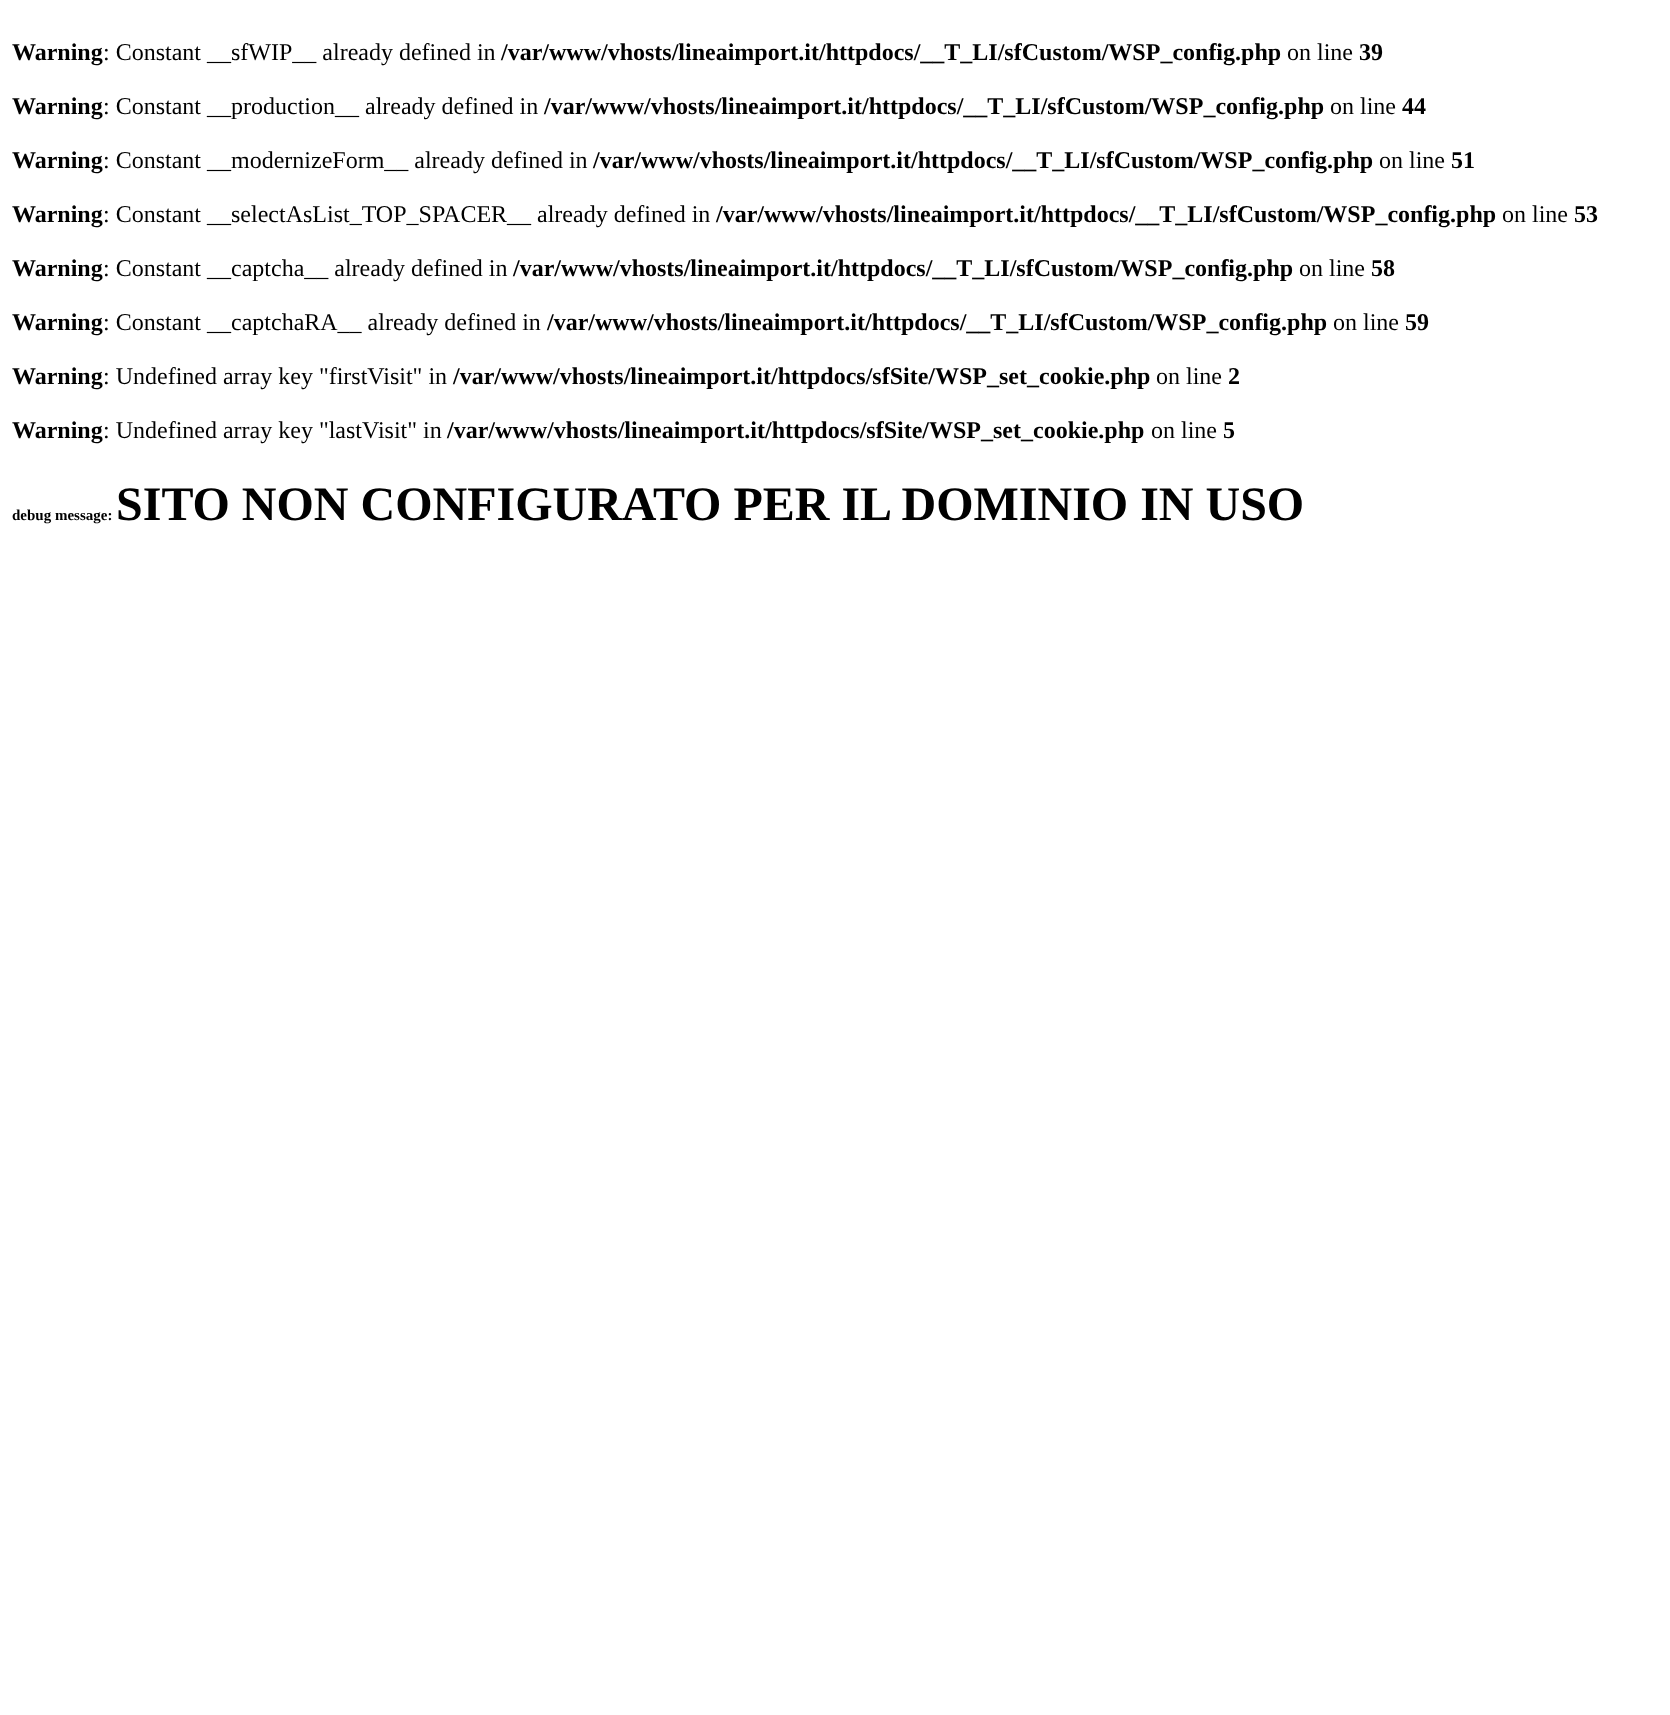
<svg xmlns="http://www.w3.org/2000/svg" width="1670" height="1715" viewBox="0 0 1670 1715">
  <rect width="100%" height="100%" fill="rgb(255,255,255)"/>
  <text x="12" y="60" font-family="Liberation Serif" font-size="24" font-weight="bold" fill="rgb(0,0,0)">Warning</text>
  <text x="103" y="60" font-family="Liberation Serif" font-size="24" fill="rgb(0,0,0)">: Constant __sfWIP__ already defined in</text>
  <text x="501" y="60" font-family="Liberation Serif" font-size="24" font-weight="bold" fill="rgb(0,0,0)">/var/www/vhosts/lineaimport.it/httpdocs/__T_LI/sfCustom/WSP_config.php</text>
  <text x="1287" y="60" font-family="Liberation Serif" font-size="24" fill="rgb(0,0,0)">on line</text>
  <g font-family="Liberation Serif" font-size="24" font-weight="bold" fill="rgb(0,0,0)">
    <text x="1359" y="60">39</text>
    <text x="12" y="114">Warning</text>
  </g>
  <text x="103" y="114" font-family="Liberation Serif" font-size="24" fill="rgb(0,0,0)">: Constant __production__ already defined in</text>
  <text x="544" y="114" font-family="Liberation Serif" font-size="24" font-weight="bold" fill="rgb(0,0,0)">/var/www/vhosts/lineaimport.it/httpdocs/__T_LI/sfCustom/WSP_config.php</text>
  <text x="1330" y="114" font-family="Liberation Serif" font-size="24" fill="rgb(0,0,0)">on line</text>
  <g font-family="Liberation Serif" font-size="24" font-weight="bold" fill="rgb(0,0,0)">
    <text x="1402" y="114">44</text>
    <text x="12" y="168">Warning</text>
  </g>
  <text x="103" y="168" font-family="Liberation Serif" font-size="24" fill="rgb(0,0,0)">: Constant __modernizeForm__ already defined in</text>
  <text x="593" y="168" font-family="Liberation Serif" font-size="24" font-weight="bold" fill="rgb(0,0,0)">/var/www/vhosts/lineaimport.it/httpdocs/__T_LI/sfCustom/WSP_config.php</text>
  <text x="1379" y="168" font-family="Liberation Serif" font-size="24" fill="rgb(0,0,0)">on line</text>
  <g font-family="Liberation Serif" font-size="24" font-weight="bold" fill="rgb(0,0,0)">
    <text x="1451" y="168">51</text>
    <text x="12" y="222">Warning</text>
  </g>
  <text x="103" y="222" font-family="Liberation Serif" font-size="24" fill="rgb(0,0,0)">: Constant __selectAsList_TOP_SPACER__ already defined in</text>
  <text x="716" y="222" font-family="Liberation Serif" font-size="24" font-weight="bold" fill="rgb(0,0,0)">/var/www/vhosts/lineaimport.it/httpdocs/__T_LI/sfCustom/WSP_config.php</text>
  <text x="1502" y="222" font-family="Liberation Serif" font-size="24" fill="rgb(0,0,0)">on line</text>
  <g font-family="Liberation Serif" font-size="24" font-weight="bold" fill="rgb(0,0,0)">
    <text x="1574" y="222">53</text>
    <text x="12" y="276">Warning</text>
  </g>
  <text x="103" y="276" font-family="Liberation Serif" font-size="24" fill="rgb(0,0,0)">: Constant __captcha__ already defined in</text>
  <text x="513" y="276" font-family="Liberation Serif" font-size="24" font-weight="bold" fill="rgb(0,0,0)">/var/www/vhosts/lineaimport.it/httpdocs/__T_LI/sfCustom/WSP_config.php</text>
  <text x="1299" y="276" font-family="Liberation Serif" font-size="24" fill="rgb(0,0,0)">on line</text>
  <g font-family="Liberation Serif" font-size="24" font-weight="bold" fill="rgb(0,0,0)">
    <text x="1371" y="276">58</text>
    <text x="12" y="330">Warning</text>
  </g>
  <text x="103" y="330" font-family="Liberation Serif" font-size="24" fill="rgb(0,0,0)">: Constant __captchaRA__ already defined in</text>
  <text x="547" y="330" font-family="Liberation Serif" font-size="24" font-weight="bold" fill="rgb(0,0,0)">/var/www/vhosts/lineaimport.it/httpdocs/__T_LI/sfCustom/WSP_config.php</text>
  <text x="1333" y="330" font-family="Liberation Serif" font-size="24" fill="rgb(0,0,0)">on line</text>
  <g font-family="Liberation Serif" font-size="24" font-weight="bold" fill="rgb(0,0,0)">
    <text x="1405" y="330">59</text>
    <text x="12" y="384">Warning</text>
  </g>
  <text x="103" y="384" font-family="Liberation Serif" font-size="24" fill="rgb(0,0,0)">: Undefined array key "firstVisit" in</text>
  <text x="453" y="384" font-family="Liberation Serif" font-size="24" font-weight="bold" fill="rgb(0,0,0)">/var/www/vhosts/lineaimport.it/httpdocs/sfSite/WSP_set_cookie.php</text>
  <text x="1156" y="384" font-family="Liberation Serif" font-size="24" fill="rgb(0,0,0)">on line</text>
  <g font-family="Liberation Serif" font-size="24" font-weight="bold" fill="rgb(0,0,0)">
    <text x="1228" y="384">2</text>
    <text x="12" y="438">Warning</text>
  </g>
  <text x="103" y="438" font-family="Liberation Serif" font-size="24" fill="rgb(0,0,0)">: Undefined array key "lastVisit" in</text>
  <text x="447" y="438" font-family="Liberation Serif" font-size="24" font-weight="bold" fill="rgb(0,0,0)">/var/www/vhosts/lineaimport.it/httpdocs/sfSite/WSP_set_cookie.php</text>
  <text x="1151" y="438" font-family="Liberation Serif" font-size="24" fill="rgb(0,0,0)">on line</text>
  <text x="1223" y="438" font-family="Liberation Serif" font-size="24" font-weight="bold" fill="rgb(0,0,0)">5</text>
  <text x="12" y="520" font-family="Liberation Serif" font-size="15" font-weight="bold" fill="rgb(0,0,0)">debug message:</text>
  <text x="116" y="520" font-family="Liberation Serif" font-size="48" font-weight="bold" fill="rgb(0,0,0)">SITO NON CONFIGURATO PER IL DOMINIO IN USO</text>
</svg>
